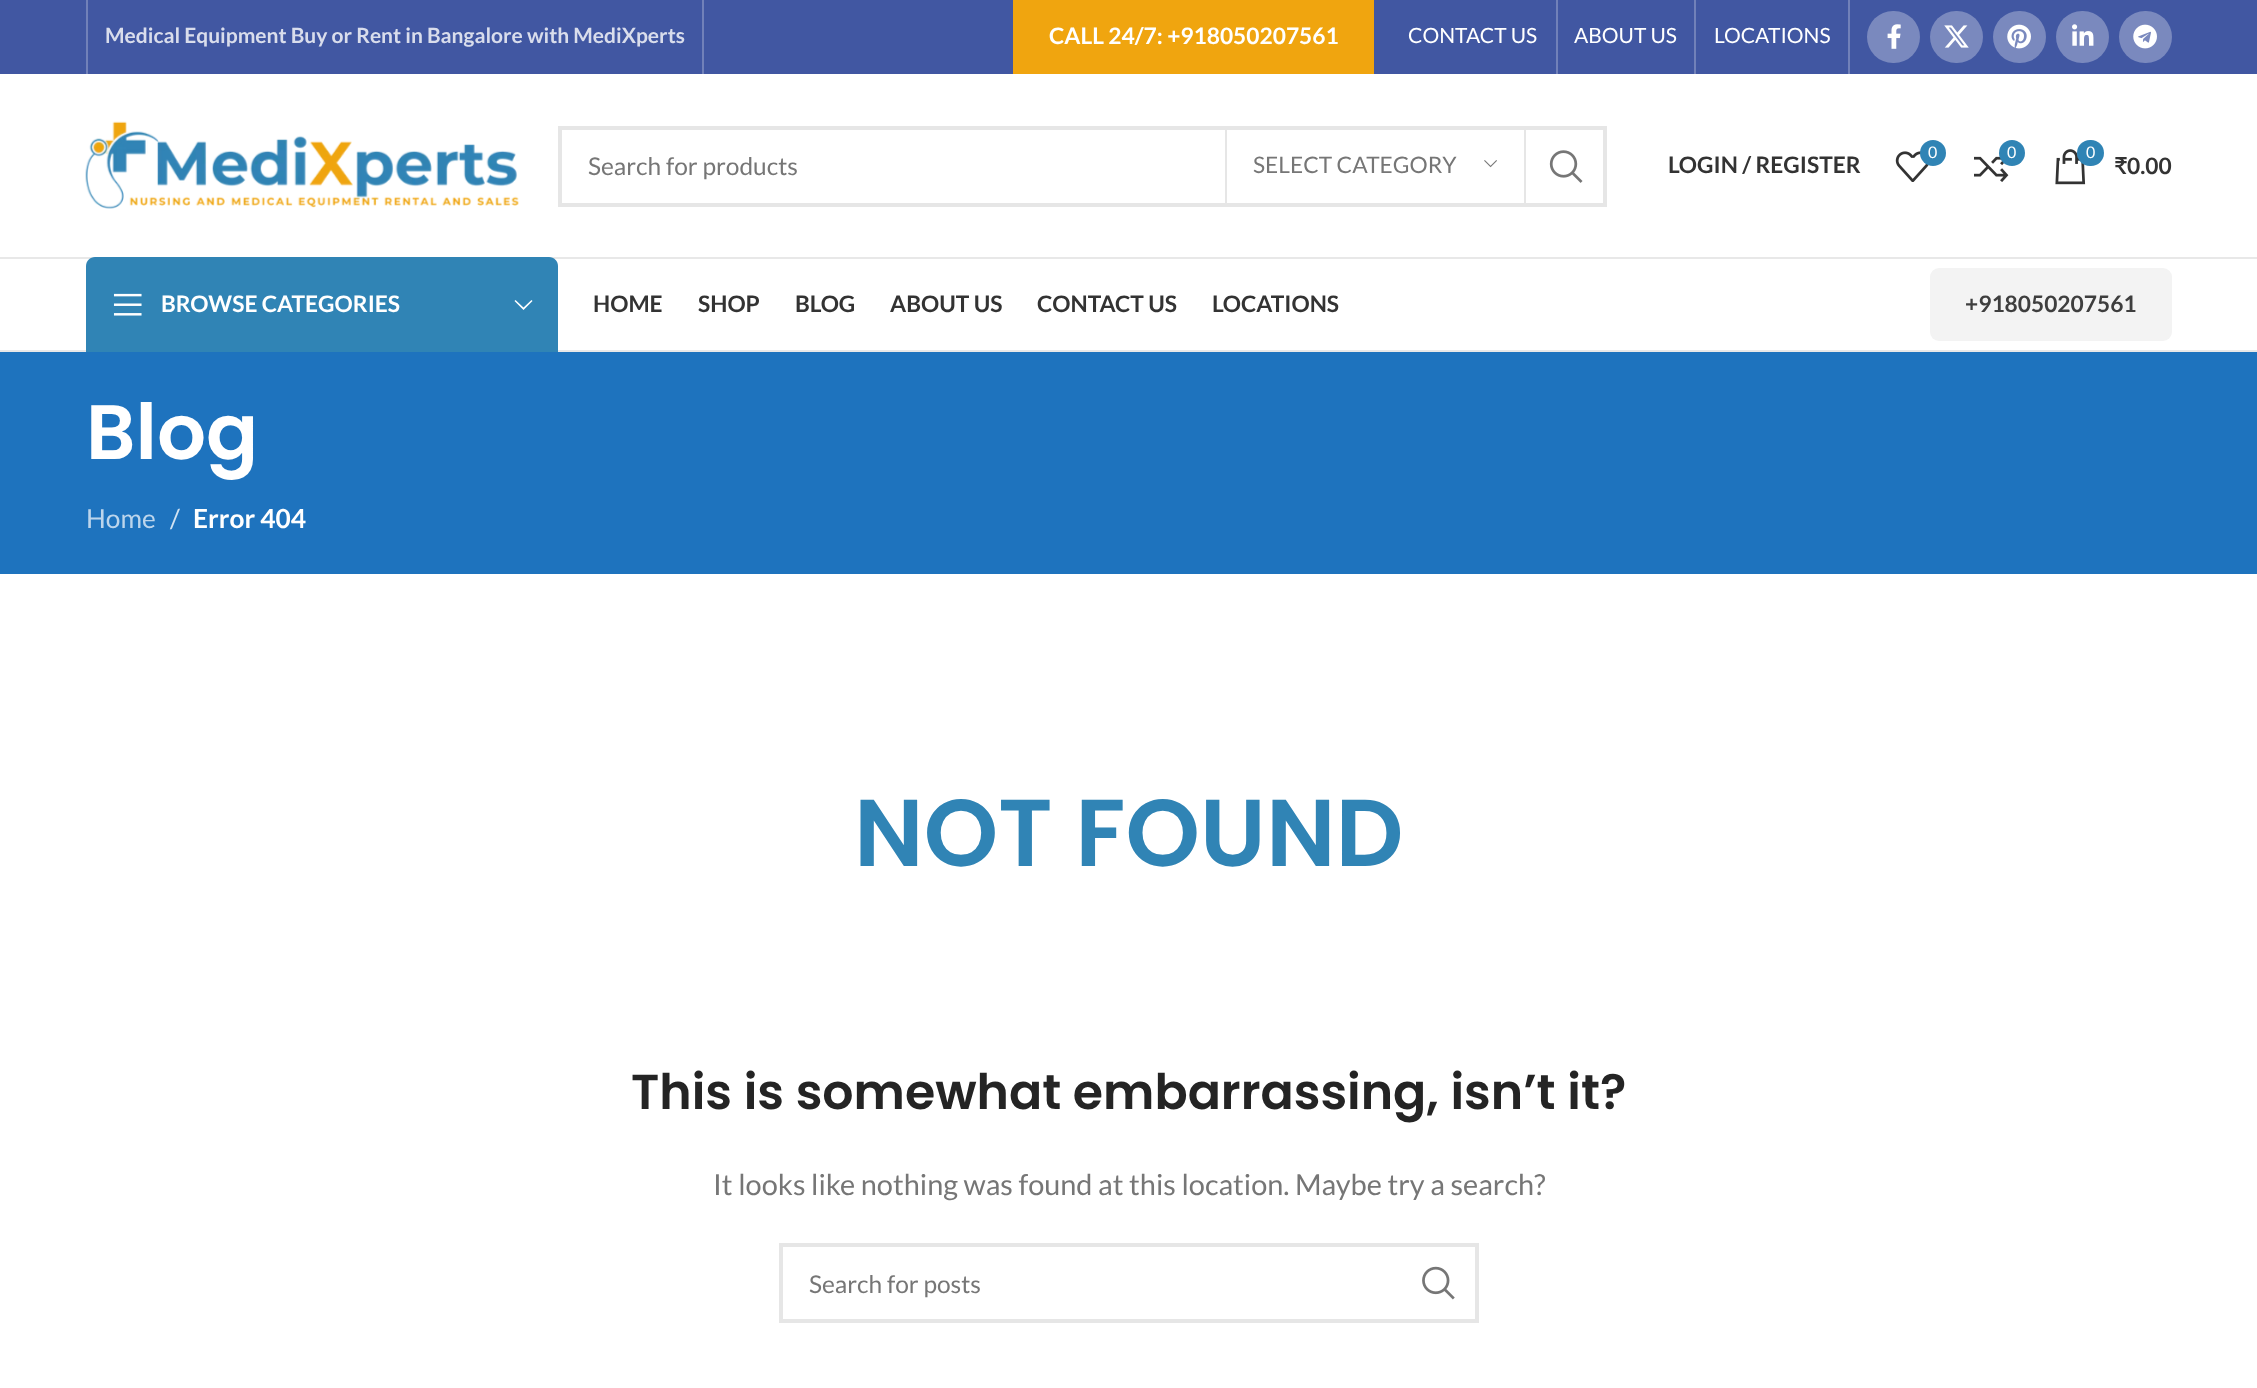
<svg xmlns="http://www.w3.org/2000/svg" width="2257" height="1388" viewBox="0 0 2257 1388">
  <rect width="100%" height="100%" fill="rgb(255,255,255)"/>
  <rect x="0" y="0" width="2257" height="74" fill="rgb(65,87,162)"/>
  <rect x="86" y="0" width="2" height="74" fill="rgb(113,129,185)"/>
  <text x="105" y="43" font-family="Lato" font-size="21" font-weight="bold" fill="rgb(217,221,236)">Medical Equipment Buy or Rent in Bangalore with MediXperts</text>
  <rect x="702" y="0" width="2" height="74" fill="rgb(113,129,185)"/>
  <rect x="1013" y="0" width="361" height="74" fill="rgb(240,165,15)"/>
  <text x="1049" y="44" font-family="Lato" font-size="22.75" font-weight="bold" fill="rgb(255,255,255)">CALL 24/7: +918050207561</text>
  <text x="1408" y="43" font-family="Lato" font-size="21" fill="rgb(255,255,255)">CONTACT US</text>
  <rect x="1556" y="0" width="2" height="74" fill="rgb(113,129,185)"/>
  <text x="1574" y="43" font-family="Lato" font-size="21" fill="rgb(255,255,255)">ABOUT US</text>
  <rect x="1694" y="0" width="2" height="74" fill="rgb(113,129,185)"/>
  <text x="1714" y="43" font-family="Lato" font-size="21" fill="rgb(255,255,255)">LOCATIONS</text>
  <rect x="1848" y="0" width="2" height="74" fill="rgb(113,129,185)"/>
  <rect x="1867" y="11" width="53" height="52" rx="26" fill="rgb(122,137,190)"/>
  <image x="1887" y="24" width="14" height="25" href="pic1.png"/>
  <rect x="1930" y="11" width="53" height="52" rx="26" fill="rgb(122,137,190)"/>
  <image x="1944" y="25" width="25" height="23" href="pic2.png"/>
  <rect x="1993" y="11" width="53" height="52" rx="26" fill="rgb(122,137,190)"/>
  <image x="2007" y="24" width="24" height="25" href="pic3.png"/>
  <rect x="2056" y="11" width="53" height="52" rx="26" fill="rgb(122,137,190)"/>
  <image x="2072" y="24" width="22" height="22" href="pic4.png"/>
  <rect x="2119" y="11" width="53" height="52" rx="26" fill="rgb(122,137,190)"/>
  <image x="2133" y="24" width="24" height="25" href="pic5.png"/>
  <rect x="0" y="257" width="2257" height="2" fill="rgb(232,232,232)"/>
  <image x="85" y="121" width="434" height="88" href="pic6.png"/>
  <rect x="560" y="128" width="1045" height="77" fill="none" stroke="rgb(230,230,230)" stroke-width="4"/>
  <text x="588" y="175" font-family="Lato" font-size="24.5" fill="rgb(118,118,118)">Search for products</text>
  <rect x="1524" y="130" width="2" height="73" fill="rgb(230,230,230)"/>
  <rect x="1225" y="130" width="2" height="73" fill="rgb(230,230,230)"/>
  <text x="1253" y="173" font-family="Lato" font-size="22.75" fill="rgb(118,118,118)">SELECT CATEGORY</text>
  <image x="1484" y="160" width="13" height="8" href="pic7.png"/>
  <image x="1549" y="150" width="34" height="33" href="pic8.png"/>
  <text x="1668" y="173" font-family="Lato" font-size="22.75" font-weight="bold" fill="rgb(51,51,51)">LOGIN / REGISTER</text>
  <image x="1895" y="151" width="34" height="31" href="pic9.png"/>
  <circle cx="1933" cy="153" r="13" fill="rgb(48,132,181)"/>
  <text x="1928" y="158" font-family="Lato" font-size="16" fill="rgb(255,255,255)">0</text>
  <image x="1974" y="156" width="35" height="26" href="pic10.png"/>
  <circle cx="2012" cy="153" r="13" fill="rgb(48,132,181)"/>
  <text x="2007" y="158" font-family="Lato" font-size="16" fill="rgb(255,255,255)">0</text>
  <image x="2055" y="149" width="31" height="36" href="pic11.png"/>
  <rect x="2077" y="140" width="27" height="26" rx="13" fill="rgb(48,132,181)"/>
  <text x="2086" y="158" font-family="Lato" font-size="16" fill="rgb(255,255,255)">0</text>
  <text x="2114" y="174" font-family="'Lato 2'" font-size="22.75" font-weight="bold" fill="rgb(51,51,51)">₹</text>
  <text x="2127" y="174" font-family="Lato" font-size="22.75" font-weight="bold" fill="rgb(51,51,51)">0.00</text>
  <rect x="0" y="350" width="2257" height="2" fill="rgb(232,232,232)"/>
  <path d="M95 257H549C554 257 558 261 558 266V352H86V266C86 261 90 257 95 257Z" fill="rgb(48,132,181)"/>
  <image x="113" y="293" width="29" height="23" href="pic12.png"/>
  <text x="161" y="312" font-family="Lato" font-size="22.75" font-weight="bold" fill="rgb(255,255,255)">BROWSE CATEGORIES</text>
  <path d="M531.5 300L523.5 307.5L515.5 300L514.5 301L523.5 310L532.5 301Z" fill="rgb(255,255,255)"/>
  <g font-family="Lato" font-size="22.75" font-weight="bold" fill="rgb(51,51,51)">
    <text x="593" y="312">HOME</text>
    <text x="698" y="312">SHOP</text>
    <text x="795" y="312">BLOG</text>
    <text x="890" y="312">ABOUT US</text>
    <text x="1037" y="312">CONTACT US</text>
    <text x="1212" y="312">LOCATIONS</text>
  </g>
  <rect x="1930" y="268" width="242" height="73" rx="9" fill="rgb(243,243,243)"/>
  <text x="1965" y="312" font-family="Lato" font-size="22.75" font-weight="bold" fill="rgb(62,62,62)">+918050207561</text>
  <rect x="0" y="352" width="2257" height="222" fill="rgb(30,115,190)"/>
  <text x="86" y="459" font-family="Poppins" font-size="77" font-weight="600" fill="rgb(255,255,255)">Blog</text>
  <text x="86" y="528" font-family="Lato" font-size="26.25" fill="rgb(188,213,236)">Home</text>
  <text x="170" y="528" font-family="Lato" font-size="26.25" fill="rgb(210,227,242)">/</text>
  <text x="193" y="528" font-family="Lato" font-size="26.25" font-weight="bold" fill="rgb(255,255,255)">Error 404</text>
  <text x="854" y="866" font-family="Poppins" font-size="94.75" font-weight="600" fill="rgb(48,132,181)">NOT FOUND</text>
  <text x="631" y="1109" font-family="Poppins" font-size="49" font-weight="600" fill="rgb(36,36,36)">This is somewhat embarrassing, isn’t it?</text>
  <text x="713" y="1195" font-family="Lato" font-size="28.9" fill="rgb(118,118,118)">It looks like nothing was found at this location. Maybe try a search?</text>
  <rect x="781" y="1245" width="696" height="76" fill="none" stroke="rgb(230,230,230)" stroke-width="4"/>
  <text x="809" y="1293" font-family="Lato" font-size="24.5" fill="rgb(118,118,118)">Search for posts</text>
  <image x="1422" y="1266" width="33" height="34" href="pic13.png"/>
</svg>
